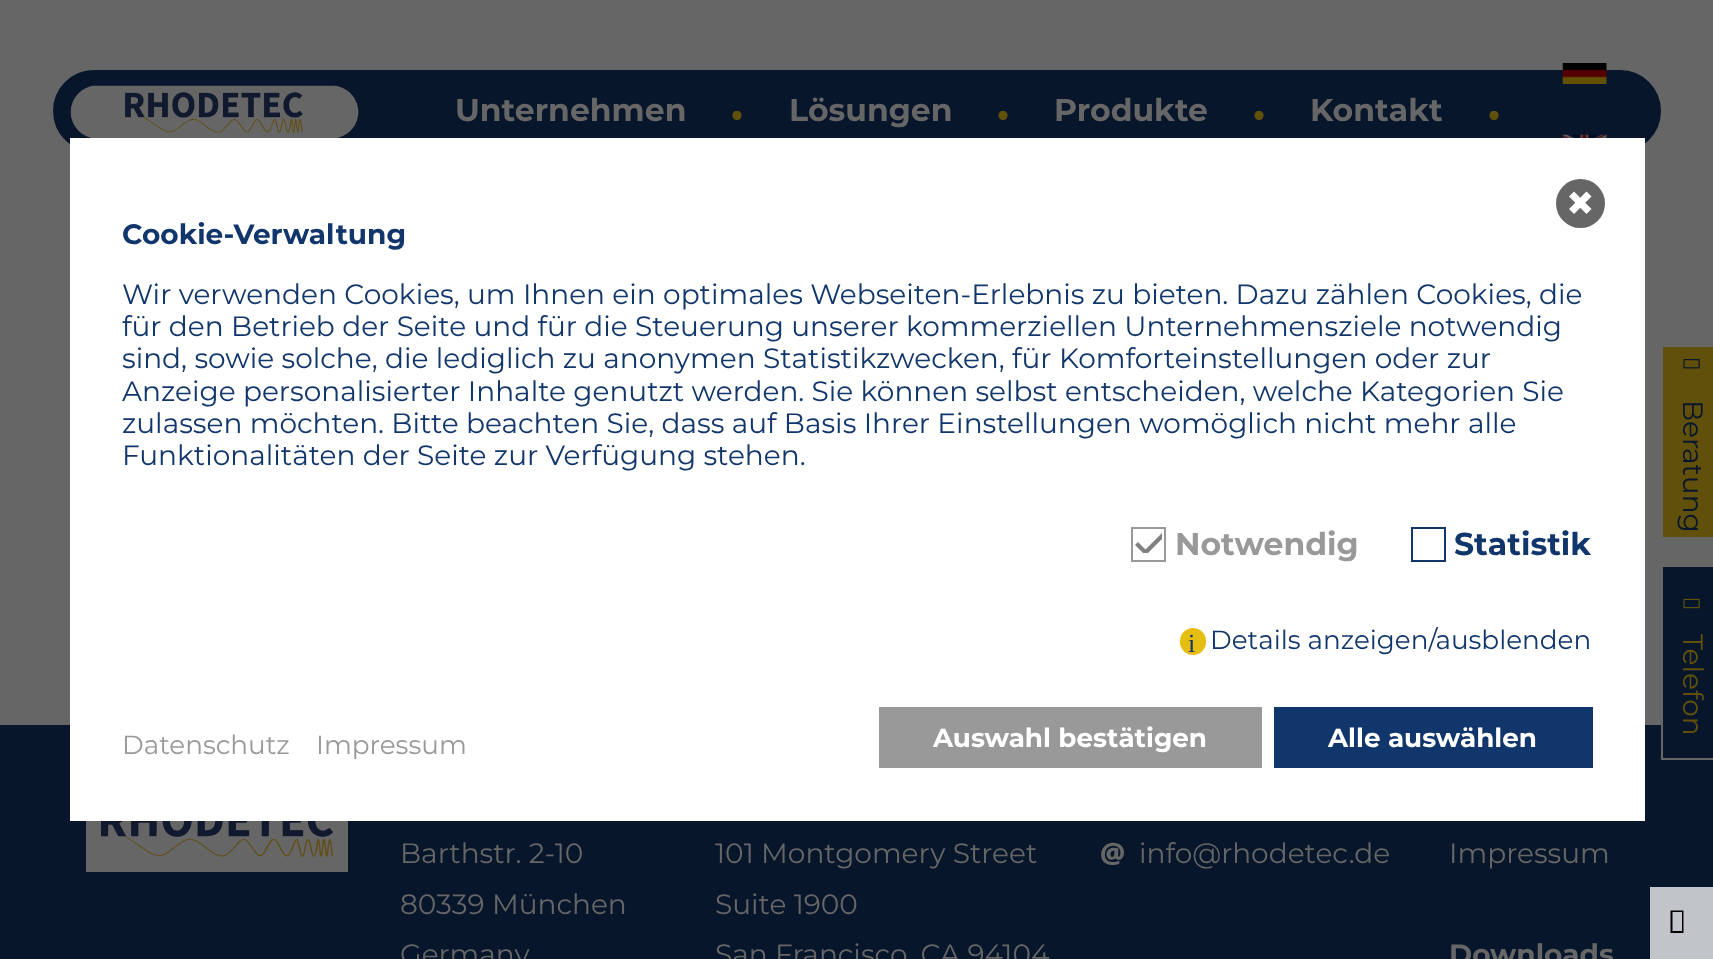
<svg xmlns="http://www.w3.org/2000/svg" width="1713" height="959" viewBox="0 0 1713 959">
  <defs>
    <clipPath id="clip1"><rect x="1134" y="527" width="28" height="26"/></clipPath>
  </defs>
  <rect width="100%" height="100%" fill="rgb(102,102,102)"/>
  <rect x="54" y="71" width="1606" height="80" rx="40" fill="rgb(7,22,43)" stroke="rgb(7,22,43)" stroke-width="2"/>
  <image x="70" y="85" width="289" height="53" href="pic1.png"/>
  <text x="455" y="121" font-family="Montserrat" font-size="31.5" font-weight="100" fill="rgb(102,102,102)">Unternehmen</text>
  <text x="728" y="132" font-family="'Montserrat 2'" font-size="61" font-weight="100" fill="rgb(97,80,12)">•</text>
  <text x="789" y="121" font-family="Montserrat" font-size="31.5" font-weight="100" fill="rgb(102,102,102)">Lösungen</text>
  <text x="994" y="132" font-family="'Montserrat 2'" font-size="61" font-weight="100" fill="rgb(97,80,12)">•</text>
  <text x="1054" y="121" font-family="Montserrat" font-size="31.5" font-weight="100" fill="rgb(102,102,102)">Produkte</text>
  <text x="1250" y="132" font-family="'Montserrat 2'" font-size="61" font-weight="100" fill="rgb(97,80,12)">•</text>
  <text x="1310" y="121" font-family="Montserrat" font-size="31.5" font-weight="100" fill="rgb(102,102,102)">Kontakt</text>
  <text x="1485" y="132" font-family="'Montserrat 2'" font-size="61" font-weight="100" fill="rgb(97,80,12)">•</text>
  <image x="1562" y="63" width="45" height="21" href="pic2.png"/>
  <image x="1562" y="134" width="45" height="4" href="pic3.png"/>
  <rect x="0" y="725" width="1713" height="234" fill="rgb(7,22,43)"/>
  <rect x="70" y="138" width="1575" height="683" fill="rgb(255,255,255)"/>
  <circle cx="1580.5" cy="203.5" r="24.5" fill="rgb(102,102,102)"/>
  <path d="M1586.5 191.5L1591.5 196.5L1574 214L1569 209Z" fill="rgb(255,255,255)"/>
  <path d="M1569 196.5L1574 191.5L1591.5 209L1586.5 214Z" fill="rgb(255,255,255)"/>
  <text x="122" y="244" font-family="Montserrat" font-size="28" font-weight="100" fill="rgb(17,54,107)">Cookie-Verwaltung</text>
  <g font-family="'Montserrat 2'" font-size="28" font-weight="100" fill="rgb(17,54,107)">
    <text>
      <tspan x="122" y="304">Wir verwenden Cookies, um Ihnen ein optimales Webseiten-Erlebnis zu bieten. Dazu zählen Cookies, die</tspan>
      <tspan x="122" y="336">für den Betrieb der Seite und für die Steuerung unserer kommerziellen Unternehmensziele notwendig</tspan>
      <tspan x="122" y="368">sind, sowie solche, die lediglich zu anonymen Statistikzwecken, für Komforteinstellungen oder zur</tspan>
      <tspan x="122" y="401">Anzeige personalisierter Inhalte genutzt werden. Sie können selbst entscheiden, welche Kategorien Sie</tspan>
      <tspan x="122" y="433">zulassen möchten. Bitte beachten Sie, dass auf Basis Ihrer Einstellungen womöglich nicht mehr alle</tspan>
      <tspan x="122" y="465">Funktionalitäten der Seite zur Verfügung stehen.</tspan>
    </text>
  </g>
  <g clip-path="url(#clip1)">
    <path d="M1136.5 543.5L1145.5 552.5L1166.5 531.5" fill="none" stroke="rgb(128,128,128)" stroke-width="4.2"/>
  </g>
  <rect x="1132" y="528" width="33" height="33" fill="none" stroke="rgb(153,153,153)" stroke-width="2"/>
  <text x="1175" y="555" font-family="Montserrat" font-size="31.5" font-weight="100" fill="rgb(153,153,153)">Notwendig</text>
  <rect x="1412" y="528" width="33" height="33" fill="none" stroke="rgb(17,54,107)" stroke-width="2"/>
  <text x="1454" y="555" font-family="Montserrat" font-size="31.5" font-weight="100" fill="rgb(17,54,107)">Statistik</text>
  <rect x="1180" y="628" width="26" height="27" rx="13" fill="rgb(230,189,17)"/>
  <text x="1188" y="652" font-family="Liberation Serif" font-size="26.25" fill="rgb(17,54,107)">i</text>
  <text x="1210" y="649" font-family="'Montserrat 2'" font-size="26.25" font-weight="100" fill="rgb(17,54,107)">Details anzeigen/ausblenden</text>
  <g font-family="'Montserrat 2'" font-size="26.25" font-weight="100" fill="rgb(153,153,153)">
    <text x="122" y="754">Datenschutz</text>
    <text x="316" y="754">Impressum</text>
  </g>
  <rect x="879" y="707" width="383" height="61" fill="rgb(153,153,153)"/>
  <text x="933" y="747" font-family="Montserrat" font-size="26.25" font-weight="100" fill="rgb(255,255,255)">Auswahl bestätigen</text>
  <rect x="1274" y="707" width="319" height="61" fill="rgb(17,54,107)"/>
  <text x="1328" y="747" font-family="Montserrat" font-size="26.25" font-weight="100" fill="rgb(255,255,255)">Alle auswählen</text>
  <rect x="1663" y="347" width="50" height="190" fill="rgb(97,80,12)"/>
  <image x="1683" y="359" width="17" height="10" href="pic4.png"/>
  <text x="1683" y="400" transform="rotate(90 1683 400)" font-family="'Montserrat 2'" font-size="28" font-weight="100" fill="rgb(7,22,43)">Beratung</text>
  <rect x="1663" y="567" width="50" height="158" fill="rgb(7,22,43)"/>
  <rect x="1661" y="758" width="52" height="2" fill="rgb(102,102,102)"/>
  <rect x="1661" y="725" width="2" height="35" fill="rgb(102,102,102)"/>
  <image x="1683" y="598" width="17" height="11" href="pic5.png"/>
  <text x="1683" y="634" transform="rotate(90 1683 634)" font-family="'Montserrat 2'" font-size="28" font-weight="100" fill="rgb(97,80,12)">Telefon</text>
  <rect x="86" y="821" width="262" height="51" fill="rgb(102,102,102)"/>
  <image x="100" y="821" width="233" height="36" href="pic6.png"/>
  <g font-family="'Montserrat 2'" font-size="28" font-weight="100" fill="rgb(102,102,102)">
    <text>
      <tspan x="400" y="863">Barthstr. 2-10</tspan>
      <tspan x="400" y="914">80339 München</tspan>
      <tspan x="400" y="964">Germany</tspan>
    </text>
    <text>
      <tspan x="715" y="863">101 Montgomery Street</tspan>
      <tspan x="715" y="914">Suite 1900</tspan>
      <tspan x="715" y="964">San Francisco, CA 94104</tspan>
    </text>
  </g>
  <text x="1100" y="863" font-family="Noto Sans" font-size="28" font-weight="900" fill="rgb(102,102,102)">@</text>
  <g font-family="'Montserrat 2'" font-size="28" font-weight="100" fill="rgb(102,102,102)">
    <text x="1139" y="863">info@rhodetec.de</text>
    <text x="1449" y="863">Impressum</text>
  </g>
  <text x="1449" y="964" font-family="Montserrat" font-size="28" font-weight="100" fill="rgb(102,102,102)">Downloads</text>
  <rect x="1650" y="887" width="63" height="72" fill="rgb(193,197,202)"/>
  <path d="M1670.5 933V910.5H1683.5V933ZM1672.5 931H1682V912H1672.5Z" fill="rgb(0,0,0)"/>
</svg>
